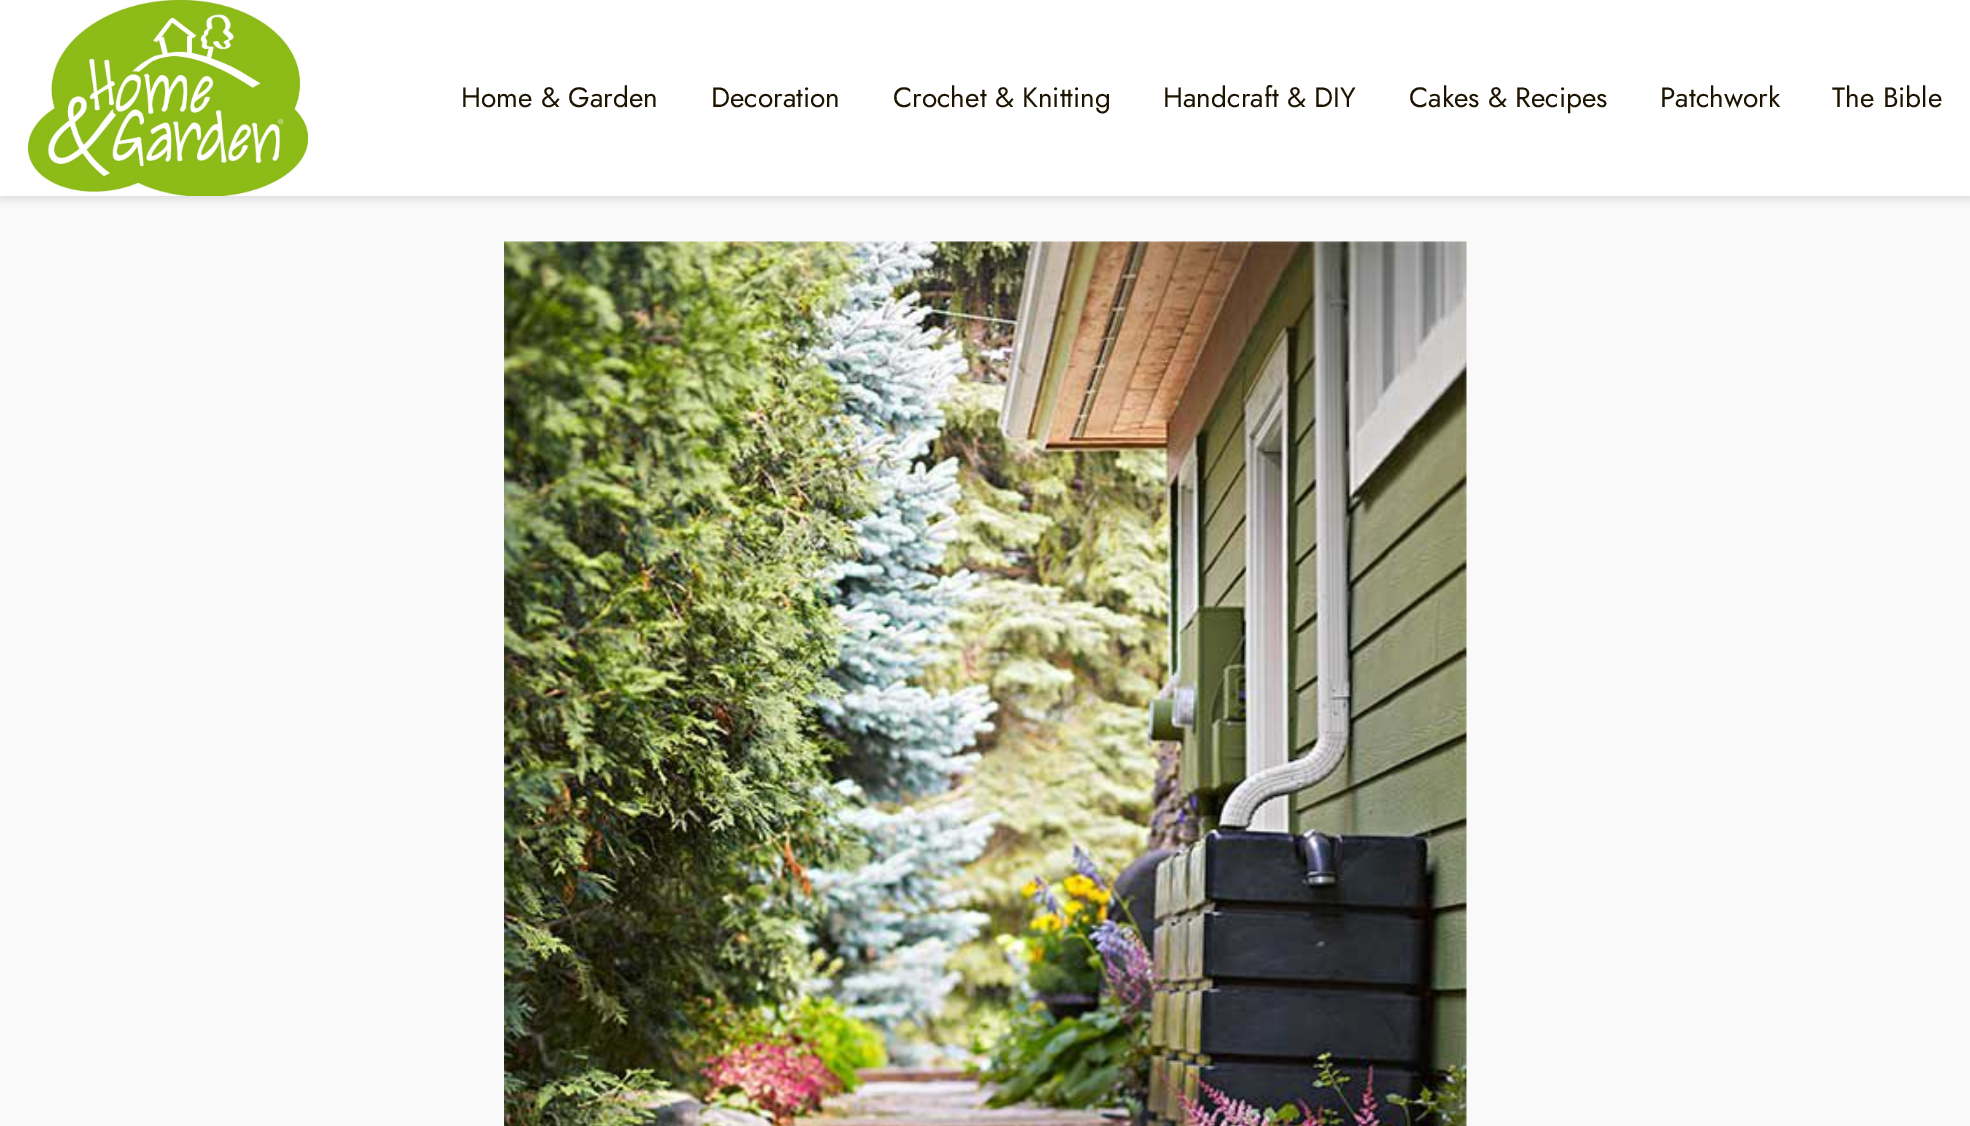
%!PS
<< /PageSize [1970 1126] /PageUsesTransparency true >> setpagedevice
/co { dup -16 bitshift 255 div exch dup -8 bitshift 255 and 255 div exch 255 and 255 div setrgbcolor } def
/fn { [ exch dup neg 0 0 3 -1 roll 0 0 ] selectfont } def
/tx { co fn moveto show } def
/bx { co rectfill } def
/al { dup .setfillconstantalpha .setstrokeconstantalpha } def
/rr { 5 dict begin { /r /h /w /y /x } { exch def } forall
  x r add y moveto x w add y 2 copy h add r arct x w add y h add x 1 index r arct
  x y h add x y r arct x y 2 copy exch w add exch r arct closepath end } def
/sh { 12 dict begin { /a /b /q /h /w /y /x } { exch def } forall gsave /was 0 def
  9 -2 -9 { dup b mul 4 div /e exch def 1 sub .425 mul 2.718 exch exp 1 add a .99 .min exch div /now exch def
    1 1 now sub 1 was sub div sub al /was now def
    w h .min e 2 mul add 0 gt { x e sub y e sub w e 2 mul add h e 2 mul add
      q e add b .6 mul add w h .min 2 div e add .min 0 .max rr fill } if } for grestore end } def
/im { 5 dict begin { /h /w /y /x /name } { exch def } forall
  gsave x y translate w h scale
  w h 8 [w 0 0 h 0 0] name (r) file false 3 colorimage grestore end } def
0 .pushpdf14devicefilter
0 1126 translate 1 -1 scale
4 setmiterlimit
0 0 1970 1126 16#F9F9F9 bx
16#000000 co
0 4 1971 196 0 3.5 .1 sh
0 0 1970 196 16#FFFFFF bx
(media/1.raw) 28 0 280 196 im
(media/2.raw) 504 241 963 885 im
(Home & Garden) 461 107 /Jost-Regular 28 16#1C1400 tx
(Decoration) 711 107 /Jost-Regular 28 16#1C1400 tx
(Crochet & Knitting) 893 107 /Jost-Regular 28 16#1C1400 tx
(Handcraft & DIY) 1163 107 /Jost-Regular 28 16#1C1400 tx
(Cakes & Recipes) 1409 107 /Jost-Regular 28 16#1C1400 tx
(Patchwork) 1660 107 /Jost-Regular 28 16#1C1400 tx
(The Bible) 1832 107 /Jost-Regular 28 16#1C1400 tx
.poppdf14devicefilter showpage
